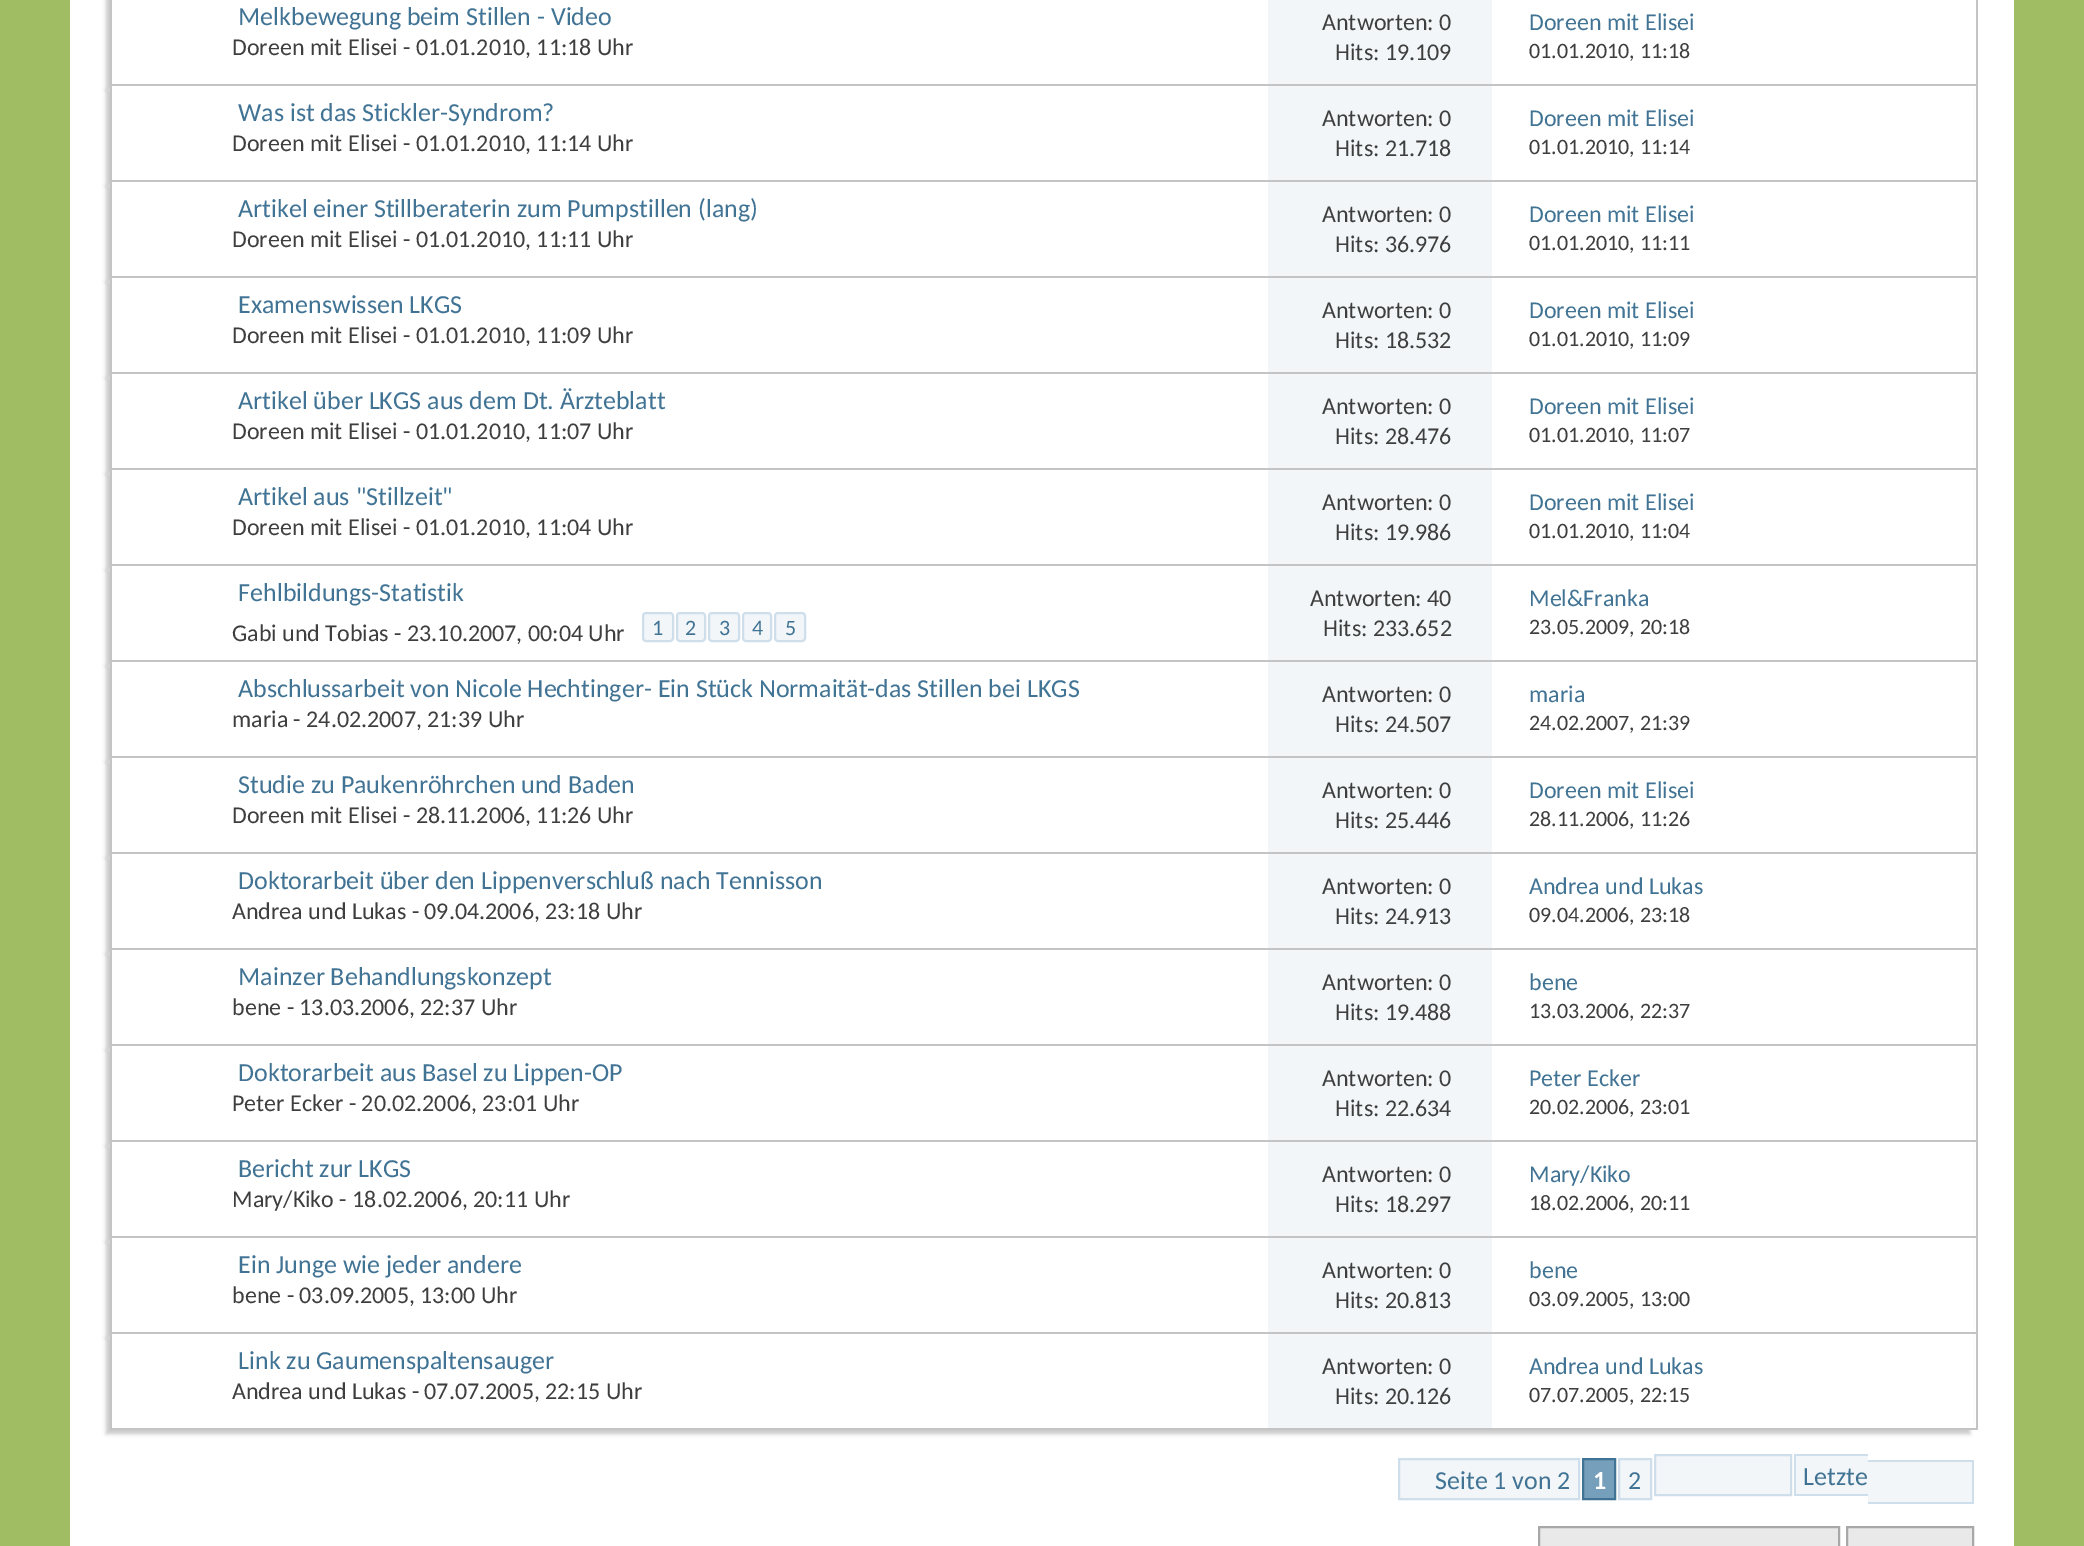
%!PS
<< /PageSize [2084 1546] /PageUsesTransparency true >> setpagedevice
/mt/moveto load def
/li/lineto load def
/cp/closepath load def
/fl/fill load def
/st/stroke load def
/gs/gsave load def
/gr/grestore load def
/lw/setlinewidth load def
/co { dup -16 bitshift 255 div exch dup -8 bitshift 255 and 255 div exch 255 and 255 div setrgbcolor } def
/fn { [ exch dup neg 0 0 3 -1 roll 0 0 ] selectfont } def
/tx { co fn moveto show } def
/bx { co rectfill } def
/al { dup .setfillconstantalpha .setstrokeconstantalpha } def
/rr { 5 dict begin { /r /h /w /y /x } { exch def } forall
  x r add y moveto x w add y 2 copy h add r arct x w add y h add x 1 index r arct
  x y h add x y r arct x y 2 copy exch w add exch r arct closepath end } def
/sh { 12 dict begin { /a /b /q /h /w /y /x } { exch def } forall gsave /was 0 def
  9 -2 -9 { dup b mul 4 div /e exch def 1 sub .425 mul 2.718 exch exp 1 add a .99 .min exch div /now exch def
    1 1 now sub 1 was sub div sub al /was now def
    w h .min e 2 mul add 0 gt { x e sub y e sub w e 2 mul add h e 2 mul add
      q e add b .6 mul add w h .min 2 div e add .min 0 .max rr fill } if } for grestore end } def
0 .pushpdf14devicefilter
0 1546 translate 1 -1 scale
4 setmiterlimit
0 0 2084 1546 16#A0BD64 bx
70 0 1944 1546 16#FFFFFF bx
gs
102 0 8 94 rectclip
16#C8C8C8 co
106 -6 1864 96 0 2 1 sh
gr
1976 0 2 86 16#C4C4C4 bx
110 84 1868 2 16#C4C4C4 bx
110 0 2 86 16#C4C4C4 bx
1268 0 224 84 16#F2F6F8 bx
16#C8C8C8 co
106 90 1864 96 0 2 1 sh
112 86 1861 94 16#FFFFFF bx
1976 86 2 96 16#C4C4C4 bx
110 180 1868 2 16#C4C4C4 bx
110 86 2 96 16#C4C4C4 bx
1268 86 224 94 16#F2F6F8 bx
16#C8C8C8 co
106 186 1864 96 0 2 1 sh
112 182 1861 94 16#FFFFFF bx
1976 182 2 96 16#C4C4C4 bx
110 276 1868 2 16#C4C4C4 bx
110 182 2 96 16#C4C4C4 bx
1268 182 224 94 16#F2F6F8 bx
16#C8C8C8 co
106 282 1864 96 0 2 1 sh
112 278 1861 94 16#FFFFFF bx
1976 278 2 96 16#C4C4C4 bx
110 372 1868 2 16#C4C4C4 bx
110 278 2 96 16#C4C4C4 bx
1268 278 224 94 16#F2F6F8 bx
16#C8C8C8 co
106 378 1864 96 0 2 1 sh
112 374 1861 94 16#FFFFFF bx
1976 374 2 96 16#C4C4C4 bx
110 468 1868 2 16#C4C4C4 bx
110 374 2 96 16#C4C4C4 bx
1268 374 224 94 16#F2F6F8 bx
16#C8C8C8 co
106 474 1864 96 0 2 1 sh
112 470 1861 94 16#FFFFFF bx
1976 470 2 96 16#C4C4C4 bx
110 564 1868 2 16#C4C4C4 bx
110 470 2 96 16#C4C4C4 bx
1268 470 224 94 16#F2F6F8 bx
16#C8C8C8 co
106 570 1864 96 0 2 1 sh
112 566 1861 94 16#FFFFFF bx
1976 566 2 96 16#C4C4C4 bx
110 660 1868 2 16#C4C4C4 bx
110 566 2 96 16#C4C4C4 bx
16#F2F6F8 co
643 613 30 28 3 rr gs fl gr
16#CEDFEB co
2 lw
st
16#F2F6F8 co
677 613 28 28 3 rr gs fl gr
16#CEDFEB co
st
16#F2F6F8 co
709 613 30 28 3 rr gs fl gr
16#CEDFEB co
st
16#F2F6F8 co
743 613 28 28 3 rr gs fl gr
16#CEDFEB co
st
16#F2F6F8 co
775 613 30 28 3 rr gs fl gr
16#CEDFEB co
st
1268 566 224 94 16#F2F6F8 bx
16#C8C8C8 co
106 666 1864 96 0 2 1 sh
112 662 1861 94 16#FFFFFF bx
1976 662 2 96 16#C4C4C4 bx
110 756 1868 2 16#C4C4C4 bx
110 662 2 96 16#C4C4C4 bx
1268 662 224 94 16#F2F6F8 bx
16#C8C8C8 co
106 762 1864 96 0 2 1 sh
112 758 1861 94 16#FFFFFF bx
1976 758 2 96 16#C4C4C4 bx
110 852 1868 2 16#C4C4C4 bx
110 758 2 96 16#C4C4C4 bx
1268 758 224 94 16#F2F6F8 bx
16#C8C8C8 co
106 858 1864 96 0 2 1 sh
112 854 1861 94 16#FFFFFF bx
1976 854 2 96 16#C4C4C4 bx
110 948 1868 2 16#C4C4C4 bx
110 854 2 96 16#C4C4C4 bx
1268 854 224 94 16#F2F6F8 bx
16#C8C8C8 co
106 954 1864 96 0 2 1 sh
112 950 1861 94 16#FFFFFF bx
1976 950 2 96 16#C4C4C4 bx
110 1044 1868 2 16#C4C4C4 bx
110 950 2 96 16#C4C4C4 bx
1268 950 224 94 16#F2F6F8 bx
16#C8C8C8 co
106 1050 1864 96 0 2 1 sh
112 1046 1861 94 16#FFFFFF bx
1976 1046 2 96 16#C4C4C4 bx
110 1140 1868 2 16#C4C4C4 bx
110 1046 2 96 16#C4C4C4 bx
1268 1046 224 94 16#F2F6F8 bx
16#C8C8C8 co
106 1146 1864 96 0 2 1 sh
112 1142 1861 94 16#FFFFFF bx
1976 1142 2 96 16#C4C4C4 bx
110 1236 1868 2 16#C4C4C4 bx
110 1142 2 96 16#C4C4C4 bx
1268 1142 224 94 16#F2F6F8 bx
16#C8C8C8 co
106 1242 1864 96 0 2 1 sh
112 1238 1861 94 16#FFFFFF bx
1976 1238 2 96 16#C4C4C4 bx
110 1332 1868 2 16#C4C4C4 bx
110 1238 2 96 16#C4C4C4 bx
1268 1238 224 94 16#F2F6F8 bx
16#C8C8C8 co
106 1338 1864 96 0 2 1 sh
112 1334 1861 94 16#FFFFFF bx
1976 1334 2 96 16#C4C4C4 bx
110 1428 1868 2 16#C4C4C4 bx
110 1334 2 96 16#C4C4C4 bx
1268 1334 224 94 16#F2F6F8 bx
1399 1459 mt 1579 1459 li 1579 1499 li 1399 1499 li cp gs fl gr
16#CEDFEB co
st
16#759FBB co
1583 1459 mt 1615 1459 li 1615 1499 li 1583 1499 li cp gs fl gr
16#417394 co
st
16#F2F6F8 co
1619 1459 mt 1651 1459 li 1651 1499 li 1619 1499 li cp gs fl gr
16#CEDFEB co
st
16#F2F6F8 co
1655 1455 mt 1791 1455 li 1791 1495 li 1655 1495 li cp gs fl gr
16#CEDFEB co
st
1796 1456 72 38 16#F2F6F8 bx
1794 1454 74 2 16#CEDFEB bx
1794 1494 74 2 16#CEDFEB bx
1794 1454 2 42 16#CEDFEB bx
1868 1462 104 40 16#F2F6F8 bx
1868 1460 106 2 16#CEDFEB bx
1972 1460 2 44 16#CEDFEB bx
1868 1502 106 2 16#CEDFEB bx
16#E9E9E9 co
1539 1527 mt 1839 1527 li 1839 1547 li 1539 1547 li cp gs fl gr
16#A8A8A8 co
st
16#E9E9E9 co
1847 1527 mt 1973 1527 li 1973 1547 li 1847 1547 li cp gs fl gr
16#A8A8A8 co
st
(Melkbewegung beim Stillen - Video) 238 25 /Carlito-Regular 26 16#417394 tx
(Doreen mit Elisei - 01.01.2010, 11:18 Uhr) 232 55 /Carlito-Regular 24 16#3E3E3E tx
(Antworten: 0) 1322 30 /Carlito-Regular 24 16#3E3E3E tx
(Hits: 19.109) 1335 60 /Carlito-Regular 24 16#3E3E3E tx
(Doreen mit Elisei) 1529 30 /Carlito-Regular 24 16#417394 tx
(01.01.2010, 11:18) 1529 58 /Carlito-Regular 22 16#3E3E3E tx
(Was ist das Stickler-Syndrom?) 238 121 /Carlito-Regular 26 16#417394 tx
(Doreen mit Elisei - 01.01.2010, 11:14 Uhr) 232 151 /Carlito-Regular 24 16#3E3E3E tx
(Antworten: 0) 1322 126 /Carlito-Regular 24 16#3E3E3E tx
(Hits: 21.718) 1335 156 /Carlito-Regular 24 16#3E3E3E tx
(Doreen mit Elisei) 1529 126 /Carlito-Regular 24 16#417394 tx
(01.01.2010, 11:14) 1529 154 /Carlito-Regular 22 16#3E3E3E tx
(Artikel einer Stillberaterin zum Pumpstillen \(lang\)) 238 217 /Carlito-Regular 26 16#417394 tx
(Doreen mit Elisei - 01.01.2010, 11:11 Uhr) 232 247 /Carlito-Regular 24 16#3E3E3E tx
(Antworten: 0) 1322 222 /Carlito-Regular 24 16#3E3E3E tx
(Hits: 36.976) 1335 252 /Carlito-Regular 24 16#3E3E3E tx
(Doreen mit Elisei) 1529 222 /Carlito-Regular 24 16#417394 tx
(01.01.2010, 11:11) 1529 250 /Carlito-Regular 22 16#3E3E3E tx
(Examenswissen LKGS) 238 313 /Carlito-Regular 26 16#417394 tx
(Doreen mit Elisei - 01.01.2010, 11:09 Uhr) 232 343 /Carlito-Regular 24 16#3E3E3E tx
(Antworten: 0) 1322 318 /Carlito-Regular 24 16#3E3E3E tx
(Hits: 18.532) 1335 348 /Carlito-Regular 24 16#3E3E3E tx
(Doreen mit Elisei) 1529 318 /Carlito-Regular 24 16#417394 tx
(01.01.2010, 11:09) 1529 346 /Carlito-Regular 22 16#3E3E3E tx
(Artikel über LKGS aus dem Dt. Ärzteblatt) 238 409 /Carlito-Regular 26 16#417394 tx
(Doreen mit Elisei - 01.01.2010, 11:07 Uhr) 232 439 /Carlito-Regular 24 16#3E3E3E tx
(Antworten: 0) 1322 414 /Carlito-Regular 24 16#3E3E3E tx
(Hits: 28.476) 1335 444 /Carlito-Regular 24 16#3E3E3E tx
(Doreen mit Elisei) 1529 414 /Carlito-Regular 24 16#417394 tx
(01.01.2010, 11:07) 1529 442 /Carlito-Regular 22 16#3E3E3E tx
(Artikel aus "Stillzeit") 238 505 /Carlito-Regular 26 16#417394 tx
(Doreen mit Elisei - 01.01.2010, 11:04 Uhr) 232 535 /Carlito-Regular 24 16#3E3E3E tx
(Antworten: 0) 1322 510 /Carlito-Regular 24 16#3E3E3E tx
(Hits: 19.986) 1335 540 /Carlito-Regular 24 16#3E3E3E tx
(Doreen mit Elisei) 1529 510 /Carlito-Regular 24 16#417394 tx
(01.01.2010, 11:04) 1529 538 /Carlito-Regular 22 16#3E3E3E tx
(Fehlbildungs-Statistik) 238 601 /Carlito-Regular 26 16#417394 tx
(Gabi und Tobias - 23.10.2007, 00:04 Uhr) 232 641 /Carlito-Regular 24 16#3E3E3E tx
(1) 652 635 /Carlito-Regular 22 16#417394 tx
(2) 685 635 /Carlito-Regular 22 16#417394 tx
(3) 719 635 /Carlito-Regular 22 16#417394 tx
(4) 752 635 /Carlito-Regular 22 16#417394 tx
(5) 785 635 /Carlito-Regular 22 16#417394 tx
(Antworten: 40) 1310 606 /Carlito-Regular 24 16#3E3E3E tx
(Hits: 233.652) 1323 636 /Carlito-Regular 24 16#3E3E3E tx
(Mel&Franka) 1529 606 /Carlito-Regular 24 16#417394 tx
(23.05.2009, 20:18) 1529 634 /Carlito-Regular 22 16#3E3E3E tx
(Abschlussarbeit von Nicole Hechtinger- Ein Stück Normaität-das Stillen bei LKGS) 238 697 /Carlito-Regular 26 16#417394 tx
(maria - 24.02.2007, 21:39 Uhr) 232 727 /Carlito-Regular 24 16#3E3E3E tx
(Antworten: 0) 1322 702 /Carlito-Regular 24 16#3E3E3E tx
(Hits: 24.507) 1335 732 /Carlito-Regular 24 16#3E3E3E tx
(maria) 1529 702 /Carlito-Regular 24 16#417394 tx
(24.02.2007, 21:39) 1529 730 /Carlito-Regular 22 16#3E3E3E tx
(Studie zu Paukenröhrchen und Baden) 238 793 /Carlito-Regular 26 16#417394 tx
(Doreen mit Elisei - 28.11.2006, 11:26 Uhr) 232 823 /Carlito-Regular 24 16#3E3E3E tx
(Antworten: 0) 1322 798 /Carlito-Regular 24 16#3E3E3E tx
(Hits: 25.446) 1335 828 /Carlito-Regular 24 16#3E3E3E tx
(Doreen mit Elisei) 1529 798 /Carlito-Regular 24 16#417394 tx
(28.11.2006, 11:26) 1529 826 /Carlito-Regular 22 16#3E3E3E tx
(Doktorarbeit über den Lippenverschluß nach Tennisson) 238 889 /Carlito-Regular 26 16#417394 tx
(Andrea und Lukas - 09.04.2006, 23:18 Uhr) 232 919 /Carlito-Regular 24 16#3E3E3E tx
(Antworten: 0) 1322 894 /Carlito-Regular 24 16#3E3E3E tx
(Hits: 24.913) 1335 924 /Carlito-Regular 24 16#3E3E3E tx
(Andrea und Lukas) 1529 894 /Carlito-Regular 24 16#417394 tx
(09.04.2006, 23:18) 1529 922 /Carlito-Regular 22 16#3E3E3E tx
(Mainzer Behandlungskonzept) 238 985 /Carlito-Regular 26 16#417394 tx
(bene - 13.03.2006, 22:37 Uhr) 232 1015 /Carlito-Regular 24 16#3E3E3E tx
(Antworten: 0) 1322 990 /Carlito-Regular 24 16#3E3E3E tx
(Hits: 19.488) 1335 1020 /Carlito-Regular 24 16#3E3E3E tx
(bene) 1529 990 /Carlito-Regular 24 16#417394 tx
(13.03.2006, 22:37) 1529 1018 /Carlito-Regular 22 16#3E3E3E tx
(Doktorarbeit aus Basel zu Lippen-OP) 238 1081 /Carlito-Regular 26 16#417394 tx
(Peter Ecker - 20.02.2006, 23:01 Uhr) 232 1111 /Carlito-Regular 24 16#3E3E3E tx
(Antworten: 0) 1322 1086 /Carlito-Regular 24 16#3E3E3E tx
(Hits: 22.634) 1335 1116 /Carlito-Regular 24 16#3E3E3E tx
(Peter Ecker) 1529 1086 /Carlito-Regular 24 16#417394 tx
(20.02.2006, 23:01) 1529 1114 /Carlito-Regular 22 16#3E3E3E tx
(Bericht zur LKGS) 238 1177 /Carlito-Regular 26 16#417394 tx
(Mary/Kiko - 18.02.2006, 20:11 Uhr) 232 1207 /Carlito-Regular 24 16#3E3E3E tx
(Antworten: 0) 1322 1182 /Carlito-Regular 24 16#3E3E3E tx
(Hits: 18.297) 1335 1212 /Carlito-Regular 24 16#3E3E3E tx
(Mary/Kiko) 1529 1182 /Carlito-Regular 24 16#417394 tx
(18.02.2006, 20:11) 1529 1210 /Carlito-Regular 22 16#3E3E3E tx
(Ein Junge wie jeder andere) 238 1273 /Carlito-Regular 26 16#417394 tx
(bene - 03.09.2005, 13:00 Uhr) 232 1303 /Carlito-Regular 24 16#3E3E3E tx
(Antworten: 0) 1322 1278 /Carlito-Regular 24 16#3E3E3E tx
(Hits: 20.813) 1335 1308 /Carlito-Regular 24 16#3E3E3E tx
(bene) 1529 1278 /Carlito-Regular 24 16#417394 tx
(03.09.2005, 13:00) 1529 1306 /Carlito-Regular 22 16#3E3E3E tx
(Link zu Gaumenspaltensauger) 238 1369 /Carlito-Regular 26 16#417394 tx
(Andrea und Lukas - 07.07.2005, 22:15 Uhr) 232 1399 /Carlito-Regular 24 16#3E3E3E tx
(Antworten: 0) 1322 1374 /Carlito-Regular 24 16#3E3E3E tx
(Hits: 20.126) 1335 1404 /Carlito-Regular 24 16#3E3E3E tx
(Andrea und Lukas) 1529 1374 /Carlito-Regular 24 16#417394 tx
(07.07.2005, 22:15) 1529 1402 /Carlito-Regular 22 16#3E3E3E tx
(Seite 1 von 2) 1435 1489 /Carlito-Regular 26 16#417394 tx
(1) 1593 1489 /Carlito-Bold 26 16#FFFFFF tx
(2) 1628 1489 /Carlito-Regular 26 16#417394 tx
(Letzte) 1803 1485 /Carlito-Regular 26 16#417394 tx
.poppdf14devicefilter showpage
